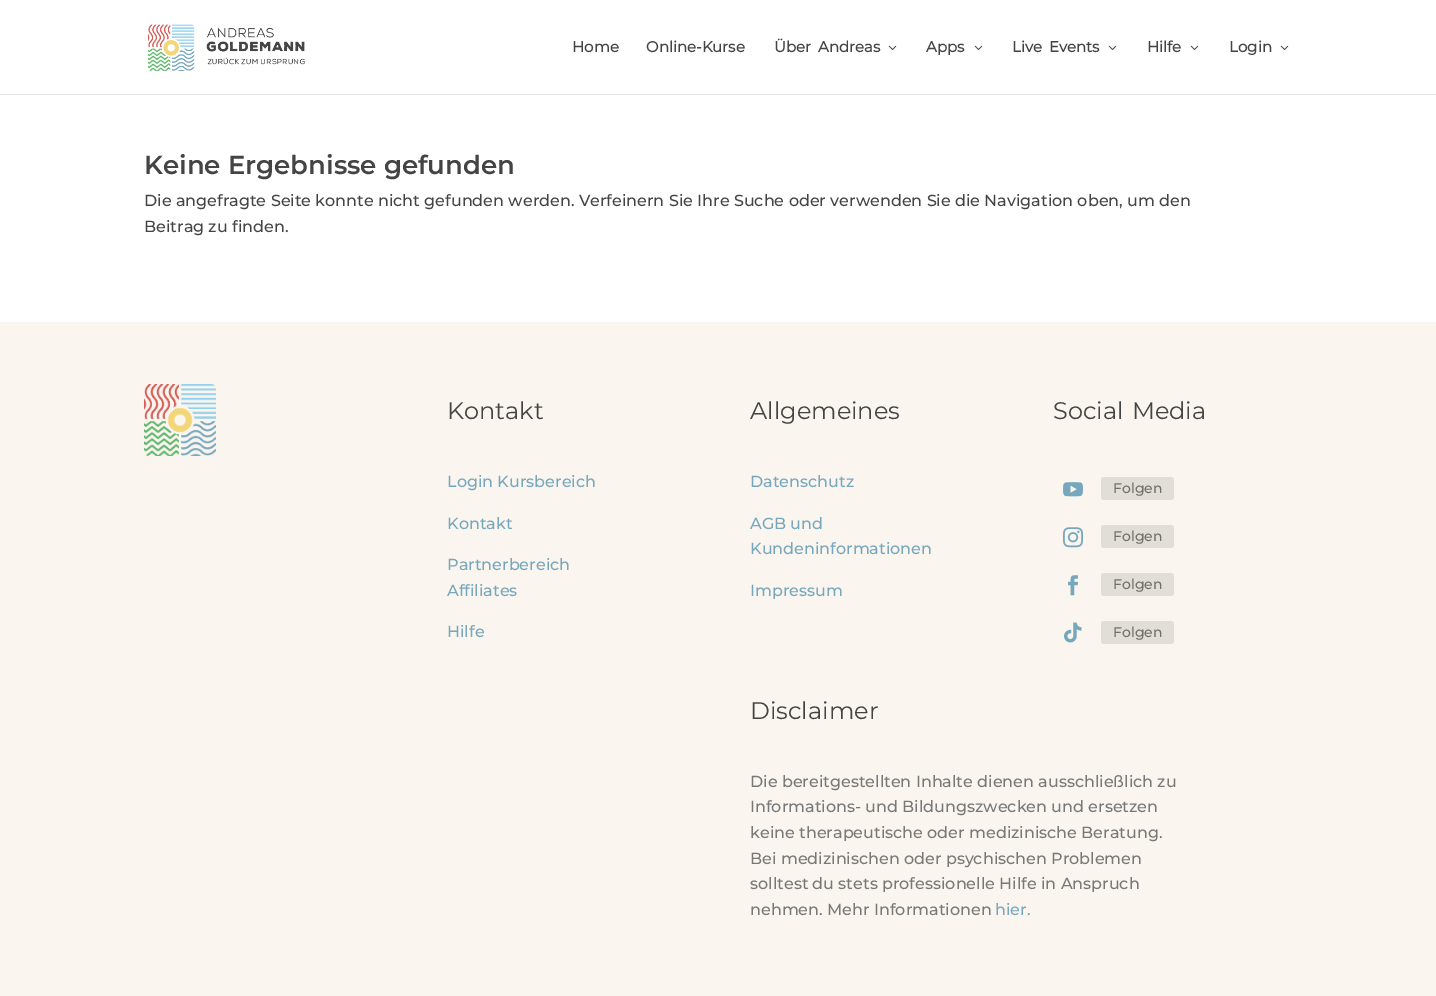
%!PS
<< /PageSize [1436 996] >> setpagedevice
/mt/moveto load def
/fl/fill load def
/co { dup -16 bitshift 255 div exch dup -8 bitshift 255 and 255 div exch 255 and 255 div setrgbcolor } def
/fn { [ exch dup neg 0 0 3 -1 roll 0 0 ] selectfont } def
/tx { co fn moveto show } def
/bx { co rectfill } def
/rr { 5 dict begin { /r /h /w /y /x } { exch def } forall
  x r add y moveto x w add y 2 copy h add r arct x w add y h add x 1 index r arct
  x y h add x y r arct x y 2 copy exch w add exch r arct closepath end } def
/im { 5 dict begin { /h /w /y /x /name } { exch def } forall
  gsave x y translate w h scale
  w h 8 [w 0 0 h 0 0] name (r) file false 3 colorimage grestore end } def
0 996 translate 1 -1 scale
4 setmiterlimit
0 0 1436 996 16#FFFFFF bx
0 94 1436 1 16#E6E6E6 bx
(media/1.raw) 148 24 157 47 im
(media/2.raw) 888 45 9 5 im
(media/2.raw) 974 45 9 5 im
(media/2.raw) 1108 45 9 5 im
(media/2.raw) 1190 45 9 5 im
(media/2.raw) 1280 45 9 5 im
0 322 1436 674 16#FAF5EF bx
(media/3.raw) 144 384 72 72 im
(media/4.raw) 1063 482 20 15 im
16#E1DDD7 co
1101 477 73 23 3 rr fl
(media/5.raw) 1063 527 20 21 im
1101 525 73 23 3 rr fl
(media/6.raw) 1068 575 10 21 im
1101 573 73 23 3 rr fl
(media/7.raw) 1064 622 18 21 im
1101 621 73 23 3 rr fl
(Home) 572 52 /Montserrat-Bold 15 16#444444 tx
(Online-Kurse) 646 52 /Montserrat-Bold 15 16#444444 tx
774 52 mt 3 0 32 (Über Andreas) widthshow
(Apps) 926 52 /Montserrat-Bold 15 16#444444 tx
1012 52 mt 3 0 32 (Live Events) widthshow
(Hilfe) 1147 52 /Montserrat-Bold 15 16#444444 tx
(Login) 1229 52 /Montserrat-Bold 15 16#444444 tx
(Keine Ergebnisse gefunden) 144 174 /Montserrat-SemiBold 26 16#444444 tx
(Die angefragte Seite konnte nicht gefunden werden. Verfeinern Sie Ihre Suche oder verwenden Sie die Navigation oben, um den) 144 206 /Montserrat-Medium 16 16#444444 tx
(Beitrag zu finden.) 144 232 /Montserrat-Medium 16 16#444444 tx
(Kontakt) 447 419 /Montserrat-Regular 24 16#444444 tx
(Login Kursbereich) 447 487 /Montserrat-Medium 16 16#77A7BC tx
(Kontakt) 447 529 /Montserrat-Medium 16 16#77A7BC tx
(Partnerbereich) 447 570 /Montserrat-Medium 16 16#77A7BC tx
(Affiliates) 447 596 /Montserrat-Medium 16 16#77A7BC tx
(Hilfe) 447 637 /Montserrat-Medium 16 16#77A7BC tx
(Allgemeines) 750 419 /Montserrat-Regular 24 16#444444 tx
(Datenschutz) 750 487 /Montserrat-Medium 16 16#77A7BC tx
(AGB und) 750 529 /Montserrat-Medium 16 16#77A7BC tx
(Kundeninformationen) 750 554 /Montserrat-Medium 16 16#77A7BC tx
(Impressum) 750 596 /Montserrat-Medium 16 16#77A7BC tx
/Montserrat-Regular 24 fn
16#444444 co
1053 419 mt 2 0 32 (Social Media) widthshow
(Folgen) 1113 493 /Montserrat-Medium 14 16#716F6C tx
(Folgen) 1113 541 /Montserrat-Medium 14 16#716F6C tx
(Folgen) 1113 589 /Montserrat-Medium 14 16#716F6C tx
(Folgen) 1113 637 /Montserrat-Medium 14 16#716F6C tx
(Disclaimer) 750 719 /Montserrat-Regular 24 16#444444 tx
(Die bereitgestellten Inhalte dienen ausschließlich zu) 750 787 /Montserrat-Medium 16 16#777878 tx
(Informations- und Bildungszwecken und ersetzen) 750 812 /Montserrat-Medium 16 16#777878 tx
(keine therapeutische oder medizinische Beratung.) 750 838 /Montserrat-Medium 16 16#777878 tx
(Bei medizinischen oder psychischen Problemen) 750 864 /Montserrat-Medium 16 16#777878 tx
(solltest du stets professionelle Hilfe in Anspruch) 750 889 /Montserrat-Medium 16 16#777878 tx
(nehmen. Mehr Informationen) 750 915 /Montserrat-Medium 16 16#777878 tx
(hier.) 995 915 /Montserrat-Medium 16 16#77A7BC tx
showpage
